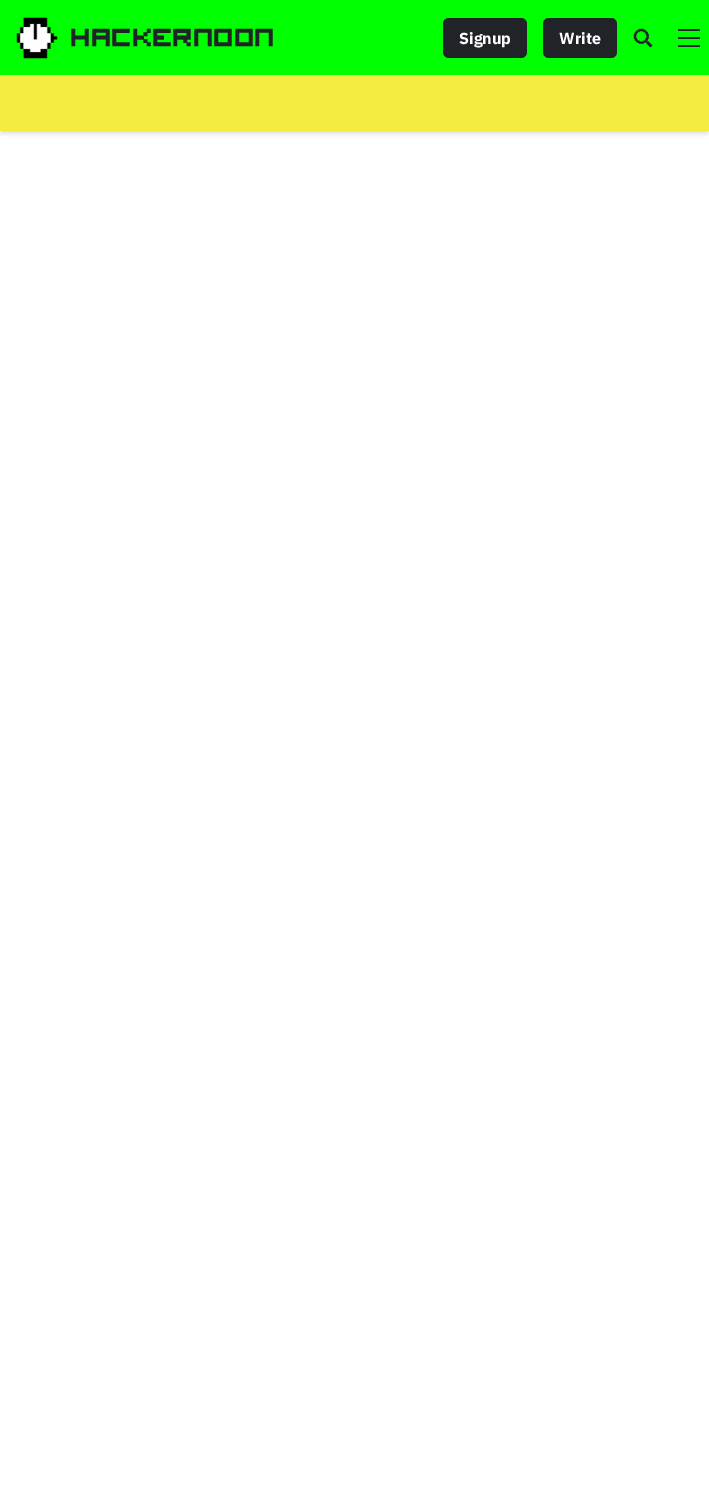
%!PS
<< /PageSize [709 1510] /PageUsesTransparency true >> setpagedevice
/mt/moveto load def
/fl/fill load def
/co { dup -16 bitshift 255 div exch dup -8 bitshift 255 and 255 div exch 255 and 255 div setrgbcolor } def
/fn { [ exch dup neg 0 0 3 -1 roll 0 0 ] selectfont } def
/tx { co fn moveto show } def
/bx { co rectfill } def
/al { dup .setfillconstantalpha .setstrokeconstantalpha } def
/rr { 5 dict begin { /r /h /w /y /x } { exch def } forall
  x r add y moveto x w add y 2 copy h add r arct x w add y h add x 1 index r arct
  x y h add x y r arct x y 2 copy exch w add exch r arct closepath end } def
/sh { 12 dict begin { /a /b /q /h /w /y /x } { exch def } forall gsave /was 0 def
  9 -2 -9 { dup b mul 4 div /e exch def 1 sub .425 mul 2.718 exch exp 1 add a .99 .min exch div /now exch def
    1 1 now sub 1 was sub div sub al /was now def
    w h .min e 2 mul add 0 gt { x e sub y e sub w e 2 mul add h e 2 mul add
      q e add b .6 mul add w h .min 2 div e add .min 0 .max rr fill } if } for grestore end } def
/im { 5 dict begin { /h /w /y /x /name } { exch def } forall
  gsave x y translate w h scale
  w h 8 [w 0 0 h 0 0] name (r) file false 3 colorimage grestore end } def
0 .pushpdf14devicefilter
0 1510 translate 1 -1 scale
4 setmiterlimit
0 0 709 1510 16#FFFFFF bx
0 0 709 75 16#00FF00 bx
(media/1.raw) 16 17 42 42 im
16#202327 co
443 18 84 40 6 rr fl
543 18 74 40 6 rr fl
(media/2.raw) 633 28 20 20 im
(media/3.raw) 678 29 22 18 im
16#000000 co
2 79 705 52 0 2 .1 sh
1 80 707 54 0 3 .1 sh
0 75 709 56 16#F5EC42 bx
/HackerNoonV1-Bold 24 fn
16#202327 co
70 44 mt 1.25 0 (Hackernoon) ashow
(Signup) 459 44 /IBMPlexSans-Bold 16 16#FFFFFF tx
(Write) 559 44 /IBMPlexSans-Bold 16 16#FFFFFF tx
.poppdf14devicefilter showpage
